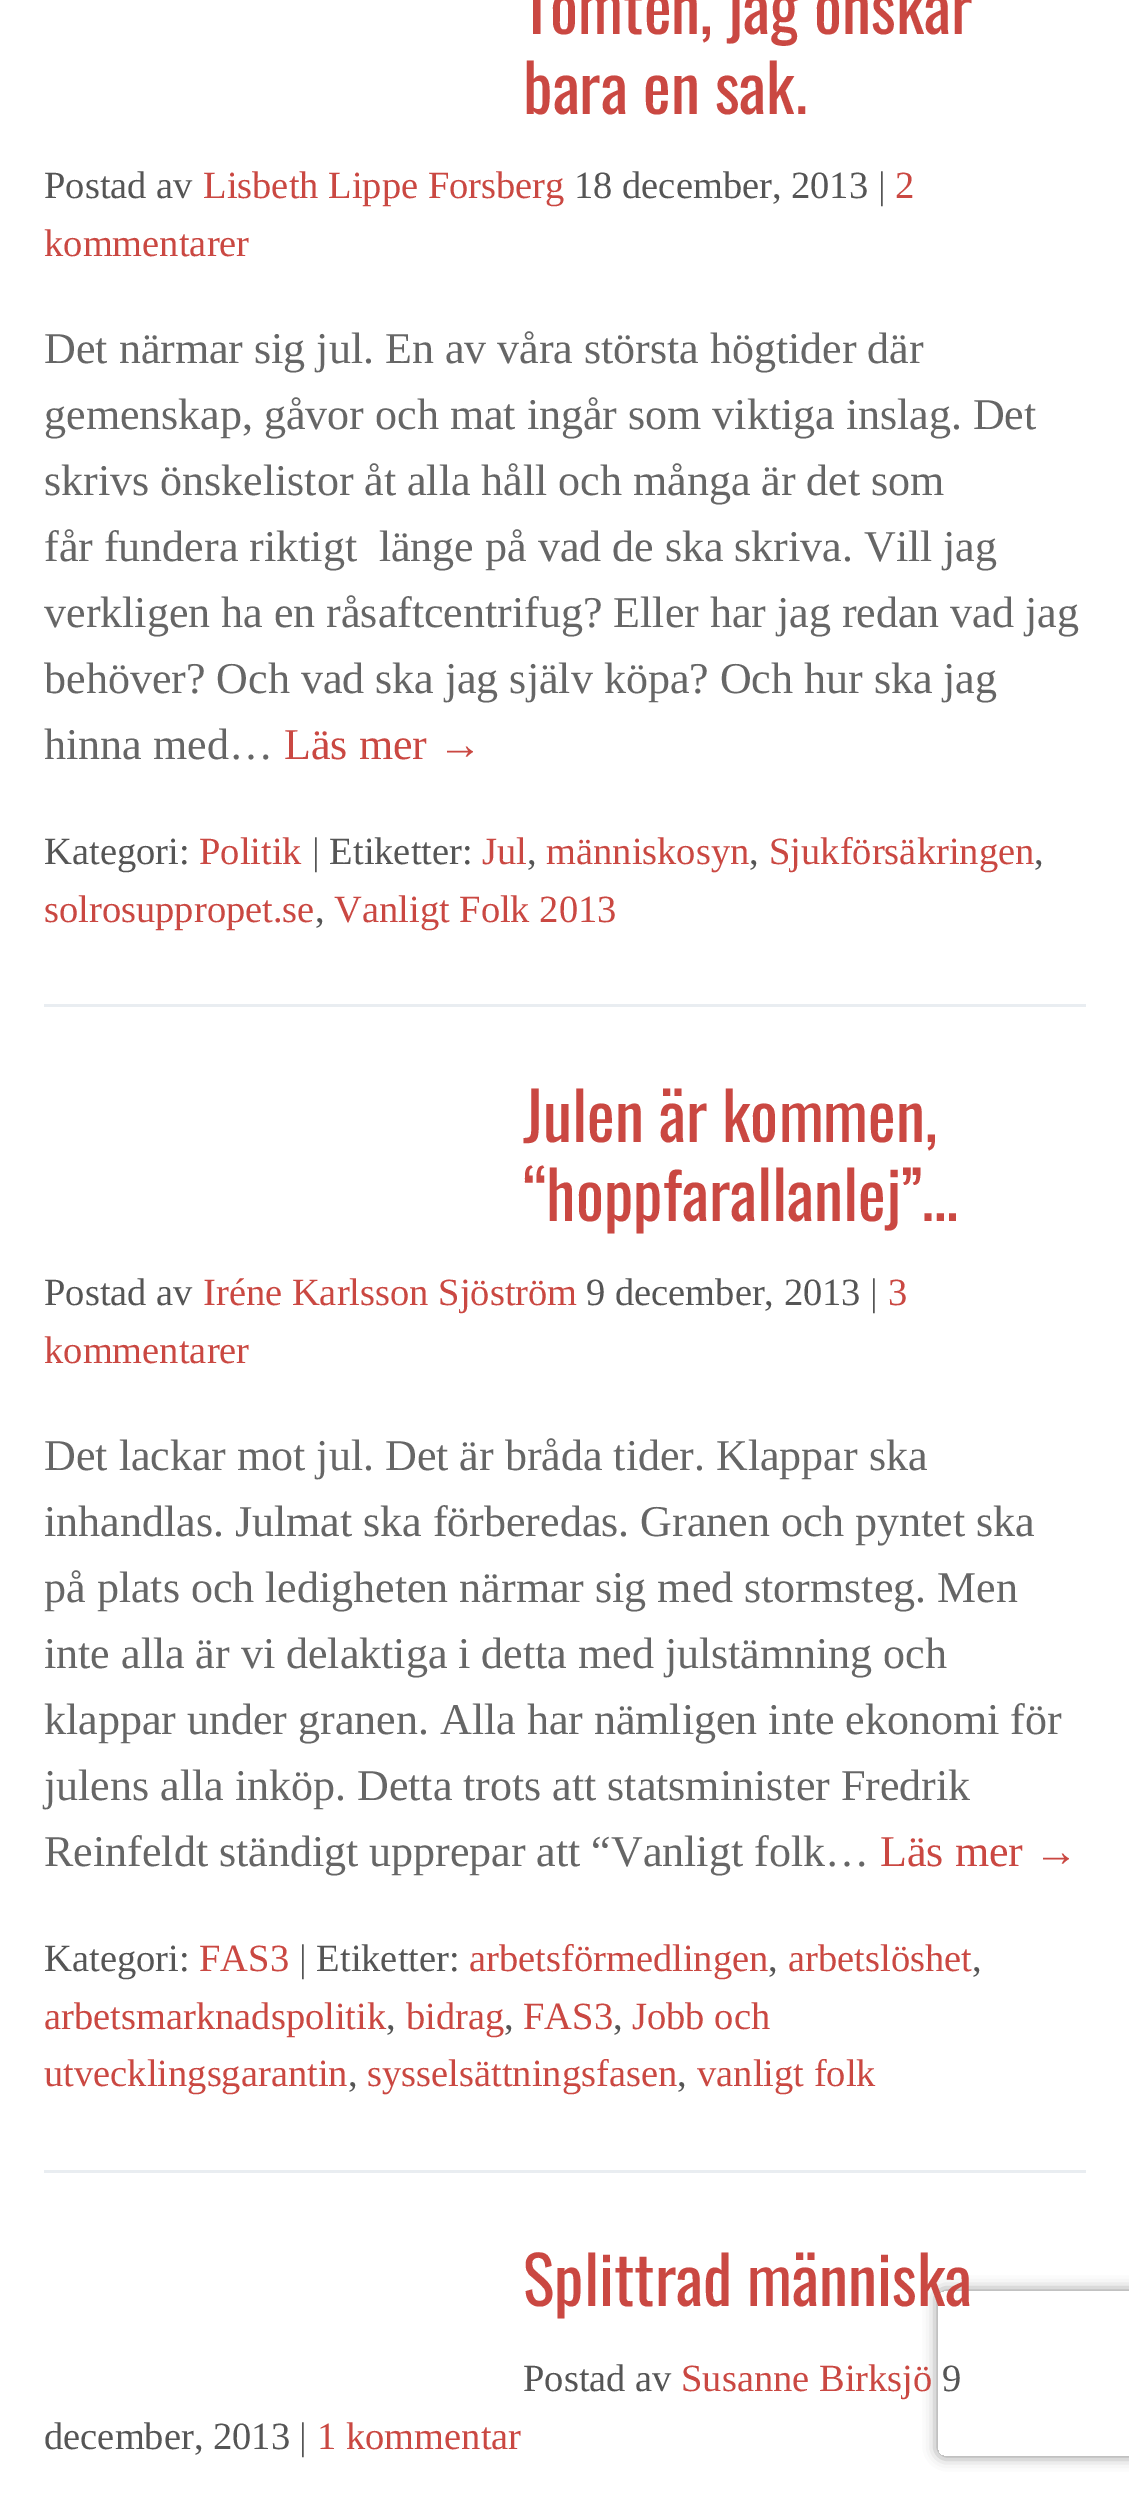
%!PS
<< /PageSize [1129 2494] /PageUsesTransparency true >> setpagedevice
/mt/moveto load def
/li/lineto load def
/ct/curveto load def
/cp/closepath load def
/gs/gsave load def
/gr/grestore load def
/co { dup -16 bitshift 255 div exch dup -8 bitshift 255 and 255 div exch 255 and 255 div setrgbcolor } def
/fn { [ exch dup neg 0 0 3 -1 roll 0 0 ] selectfont } def
/tx { co fn moveto show } def
/bx { co rectfill } def
/al { dup .setfillconstantalpha .setstrokeconstantalpha } def
/rr { 5 dict begin { /r /h /w /y /x } { exch def } forall
  x r add y moveto x w add y 2 copy h add r arct x w add y h add x 1 index r arct
  x y h add x y r arct x y 2 copy exch w add exch r arct closepath end } def
/sh { 12 dict begin { /a /b /q /h /w /y /x } { exch def } forall gsave /was 0 def
  9 -2 -9 { dup b mul 4 div /e exch def 1 sub .425 mul 2.718 exch exp 1 add a .99 .min exch div /now exch def
    1 1 now sub 1 was sub div sub al /was now def
    w h .min e 2 mul add 0 gt { x e sub y e sub w e 2 mul add h e 2 mul add
      q e add b .6 mul add w h .min 2 div e add .min 0 .max rr fill } if } for grestore end } def
0 .pushpdf14devicefilter
0 2494 translate 1 -1 scale
4 setmiterlimit
0 0 1129 2494 16#FFFFFF bx
44 1004 1042 3 16#E9EDF1 bx
44 2170 1042 3 16#E9EDF1 bx
gs
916 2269 mt 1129 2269 li 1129 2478 li 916 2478 li cp 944 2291 mt 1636 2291 li 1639.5 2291 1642 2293.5 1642 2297 ct 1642 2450 li 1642 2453.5 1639.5 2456 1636 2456 ct 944 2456 li 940.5 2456 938 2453.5 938 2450 ct 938 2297 li 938 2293.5 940.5 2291 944 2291 ct cp eoclip newpath
16#808080 co
938 2291 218 165 6 7 1 sh
gr
(Tomten, jag önskar) 523 34 /Oswald-Regular 66 16#CA4842 tx
(bara en sak.) 523 114 /Oswald-Regular 66 16#CA4842 tx
(Postad av) 44 198 /LiberationSerif-Regular 38.5 16#555555 tx
(Lisbeth Lippe Forsberg) 203 198 /LiberationSerif-Regular 38.5 16#CA4842 tx
(18 december, 2013 |) 574 198 /LiberationSerif-Regular 38.5 16#555555 tx
(2) 895 198 /LiberationSerif-Regular 38.5 16#CA4842 tx
(kommentarer) 44 256 /LiberationSerif-Regular 38.5 16#CA4842 tx
(Det närmar sig jul. En av våra största högtider där) 44 363 /LiberationSerif-Regular 44 16#666666 tx
(gemenskap, gåvor och mat ingår som viktiga inslag. Det) 44 429 /LiberationSerif-Regular 44 16#666666 tx
(skrivs önskelistor åt alla håll och många är det som) 44 495 /LiberationSerif-Regular 44 16#666666 tx
(får fundera riktigt  länge på vad de ska skriva. Vill jag) 44 561 /LiberationSerif-Regular 44 16#666666 tx
(verkligen ha en råsaftcentrifug? Eller har jag redan vad jag) 44 627 /LiberationSerif-Regular 44 16#666666 tx
(behöver? Och vad ska jag själv köpa? Och hur ska jag) 44 693 /LiberationSerif-Regular 44 16#666666 tx
(hinna med…) 44 759 /LiberationSerif-Regular 44 16#666666 tx
(Läs mer →) 284 759 /LiberationSerif-Regular 44 16#CA4842 tx
(Kategori:) 44 864 /LiberationSerif-Regular 38.5 16#555555 tx
(Politik) 199 864 /LiberationSerif-Regular 38.5 16#CA4842 tx
(| Etiketter:) 312 864 /LiberationSerif-Regular 38.5 16#555555 tx
(Jul) 482 864 /LiberationSerif-Regular 38.5 16#CA4842 tx
(,) 527 864 /LiberationSerif-Regular 38.5 16#555555 tx
(människosyn) 546 864 /LiberationSerif-Regular 38.5 16#CA4842 tx
(,) 749 864 /LiberationSerif-Regular 38.5 16#555555 tx
(Sjukförsäkringen) 769 864 /LiberationSerif-Regular 38.5 16#CA4842 tx
(,) 1034 864 /LiberationSerif-Regular 38.5 16#555555 tx
(solrosuppropet.se) 44 922 /LiberationSerif-Regular 38.5 16#CA4842 tx
(,) 315 922 /LiberationSerif-Regular 38.5 16#555555 tx
(Vanligt Folk 2013) 334 922 /LiberationSerif-Regular 38.5 16#CA4842 tx
(Julen är kommen,) 523 1142 /Oswald-Regular 66 16#CA4842 tx
(“hoppfarallanlej”…) 523 1221 /Oswald-Regular 66 16#CA4842 tx
(Postad av) 44 1305 /LiberationSerif-Regular 38.5 16#555555 tx
(Iréne Karlsson Sjöström) 203 1305 /LiberationSerif-Regular 38.5 16#CA4842 tx
(9 december, 2013 |) 586 1305 /LiberationSerif-Regular 38.5 16#555555 tx
(3) 888 1305 /LiberationSerif-Regular 38.5 16#CA4842 tx
(kommentarer) 44 1363 /LiberationSerif-Regular 38.5 16#CA4842 tx
(Det lackar mot jul. Det är bråda tider. Klappar ska) 44 1470 /LiberationSerif-Regular 44 16#666666 tx
(inhandlas. Julmat ska förberedas. Granen och pyntet ska) 44 1536 /LiberationSerif-Regular 44 16#666666 tx
(på plats och ledigheten närmar sig med stormsteg. Men) 44 1602 /LiberationSerif-Regular 44 16#666666 tx
(inte alla är vi delaktiga i detta med julstämning och) 44 1668 /LiberationSerif-Regular 44 16#666666 tx
(klappar under granen. Alla har nämligen inte ekonomi för) 44 1734 /LiberationSerif-Regular 44 16#666666 tx
(julens alla inköp. Detta trots att statsminister Fredrik) 44 1800 /LiberationSerif-Regular 44 16#666666 tx
(Reinfeldt ständigt upprepar att “Vanligt folk…) 44 1866 /LiberationSerif-Regular 44 16#666666 tx
(Läs mer →) 880 1866 /LiberationSerif-Regular 44 16#CA4842 tx
(Kategori:) 44 1971 /LiberationSerif-Regular 38.5 16#555555 tx
(FAS3) 199 1971 /LiberationSerif-Regular 38.5 16#CA4842 tx
(| Etiketter:) 299 1971 /LiberationSerif-Regular 38.5 16#555555 tx
(arbetsförmedlingen) 469 1971 /LiberationSerif-Regular 38.5 16#CA4842 tx
(,) 768 1971 /LiberationSerif-Regular 38.5 16#555555 tx
(arbetslöshet) 788 1971 /LiberationSerif-Regular 38.5 16#CA4842 tx
(,) 972 1971 /LiberationSerif-Regular 38.5 16#555555 tx
(arbetsmarknadspolitik) 44 2029 /LiberationSerif-Regular 38.5 16#CA4842 tx
(,) 386 2029 /LiberationSerif-Regular 38.5 16#555555 tx
(bidrag) 406 2029 /LiberationSerif-Regular 38.5 16#CA4842 tx
(,) 504 2029 /LiberationSerif-Regular 38.5 16#555555 tx
(FAS3) 523 2029 /LiberationSerif-Regular 38.5 16#CA4842 tx
(,) 613 2029 /LiberationSerif-Regular 38.5 16#555555 tx
(Jobb och) 632 2029 /LiberationSerif-Regular 38.5 16#CA4842 tx
(utvecklingsgarantin) 44 2086 /LiberationSerif-Regular 38.5 16#CA4842 tx
(,) 348 2086 /LiberationSerif-Regular 38.5 16#555555 tx
(sysselsättningsfasen) 367 2086 /LiberationSerif-Regular 38.5 16#CA4842 tx
(,) 677 2086 /LiberationSerif-Regular 38.5 16#555555 tx
(vanligt folk) 697 2086 /LiberationSerif-Regular 38.5 16#CA4842 tx
(Splittrad människa) 523 2306 /Oswald-Regular 66 16#CA4842 tx
(Postad av) 523 2391 /LiberationSerif-Regular 38.5 16#555555 tx
(Susanne Birksjö) 681 2391 /LiberationSerif-Regular 38.5 16#CA4842 tx
(9) 942 2391 /LiberationSerif-Regular 38.5 16#555555 tx
(december, 2013 |) 44 2449 /LiberationSerif-Regular 38.5 16#555555 tx
(1 kommentar) 317 2449 /LiberationSerif-Regular 38.5 16#CA4842 tx
.poppdf14devicefilter showpage
